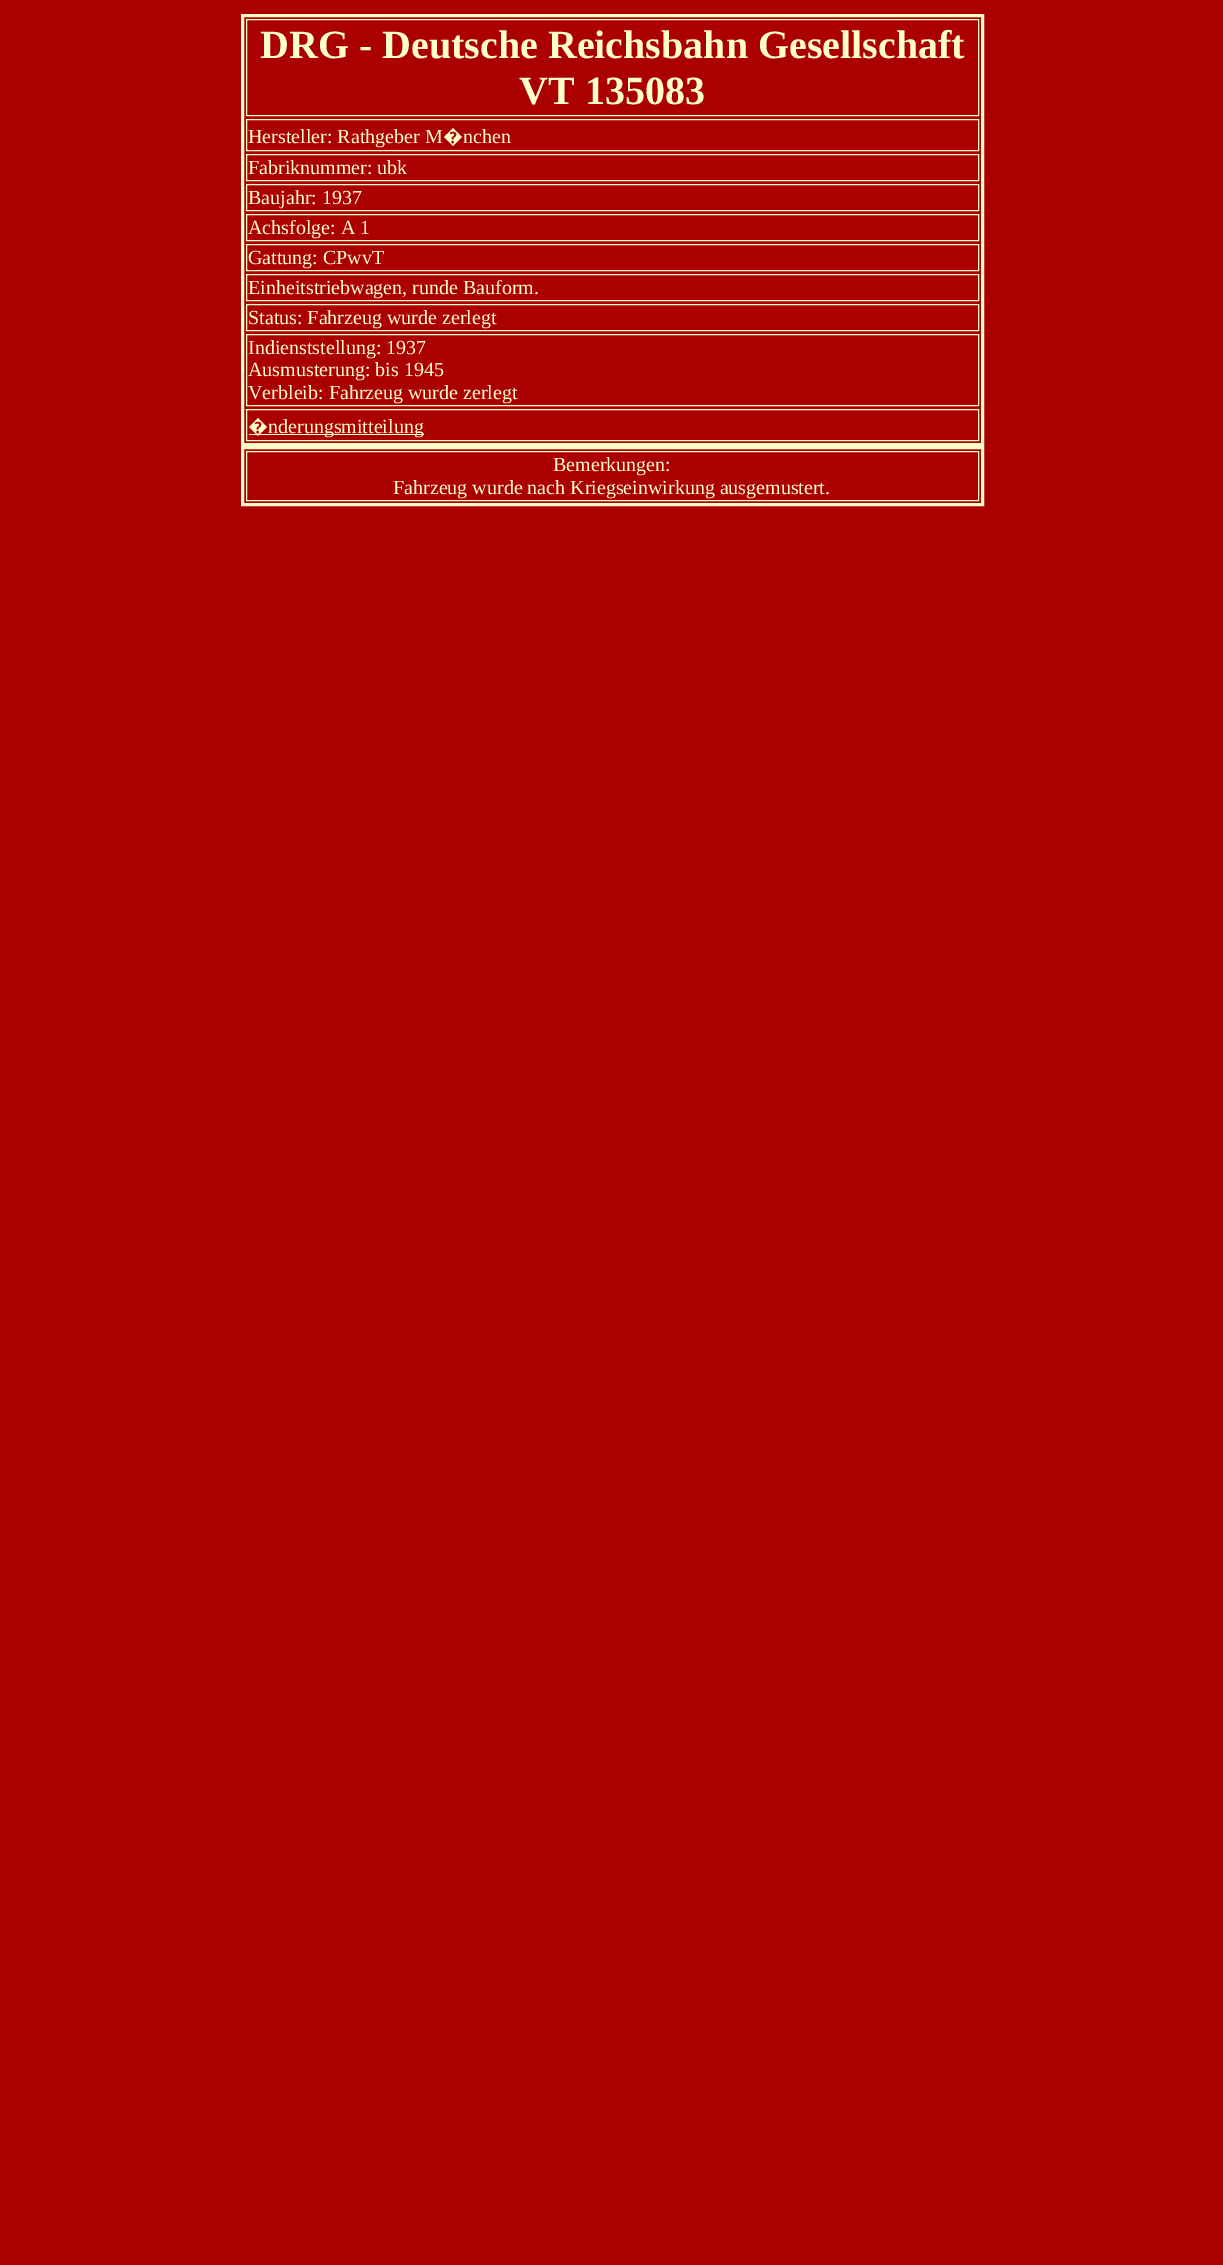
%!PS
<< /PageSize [1223 2265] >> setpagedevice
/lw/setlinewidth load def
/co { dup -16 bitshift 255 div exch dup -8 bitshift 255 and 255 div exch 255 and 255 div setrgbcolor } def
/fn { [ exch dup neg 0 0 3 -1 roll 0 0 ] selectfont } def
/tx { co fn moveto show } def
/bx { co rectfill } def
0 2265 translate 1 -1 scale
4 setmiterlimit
0 0 1223 2265 16#AA0000 bx
16#FFFFCC co
3 lw
242.5 15.5 740 429 rectstroke
1 lw
246.5 19.5 732 96 rectstroke
246.5 119.5 732 31 rectstroke
246.5 154.5 732 26 rectstroke
246.5 184.5 732 26 rectstroke
246.5 214.5 732 26 rectstroke
246.5 244.5 732 26 rectstroke
246.5 274.5 732 26 rectstroke
246.5 304.5 732 26 rectstroke
246.5 334.5 732 71 rectstroke
246.5 409.5 732 31 rectstroke
249 434 175 1 16#FFFFCC bx
3 lw
242.5 447.5 740 57 rectstroke
1 lw
246.5 451.5 732 49 rectstroke
(DRG - Deutsche Reichsbahn Gesellschaft) 260 58 /LiberationSerif-Bold 40 16#FFFFCC tx
(VT 135083) 519 104 /LiberationSerif-Bold 40 16#FFFFCC tx
(Hersteller: Rathgeber M) 248 143 /LiberationSerif-Regular 20 16#FFFFCC tx
(�) 443 143 /NotoSans-Regular 20 16#FFFFCC tx
(nchen) 463 143 /LiberationSerif-Regular 20 16#FFFFCC tx
(Fabriknummer: ubk) 248 174 /LiberationSerif-Regular 20 16#FFFFCC tx
(Baujahr: 1937) 248 204 /LiberationSerif-Regular 20 16#FFFFCC tx
(Achsfolge: A 1) 248 234 /LiberationSerif-Regular 20 16#FFFFCC tx
(Gattung: CPwvT) 248 264 /LiberationSerif-Regular 20 16#FFFFCC tx
(Einheitstriebwagen, runde Bauform.) 248 294 /LiberationSerif-Regular 20 16#FFFFCC tx
(Status: Fahrzeug wurde zerlegt) 248 324 /LiberationSerif-Regular 20 16#FFFFCC tx
(Indienststellung: 1937) 248 354 /LiberationSerif-Regular 20 16#FFFFCC tx
(Ausmusterung: bis 1945) 248 376 /LiberationSerif-Regular 20 16#FFFFCC tx
(Verbleib: Fahrzeug wurde zerlegt) 248 399 /LiberationSerif-Regular 20 16#FFFFCC tx
(�) 248 433 /NotoSans-Regular 20 16#FFFFCC tx
(nderungsmitteilung) 268 433 /LiberationSerif-Regular 20 16#FFFFCC tx
(Bemerkungen:) 553 471 /LiberationSerif-Regular 20 16#FFFFCC tx
(Fahrzeug wurde nach Kriegseinwirkung ausgemustert.) 393 494 /LiberationSerif-Regular 20 16#FFFFCC tx
showpage
